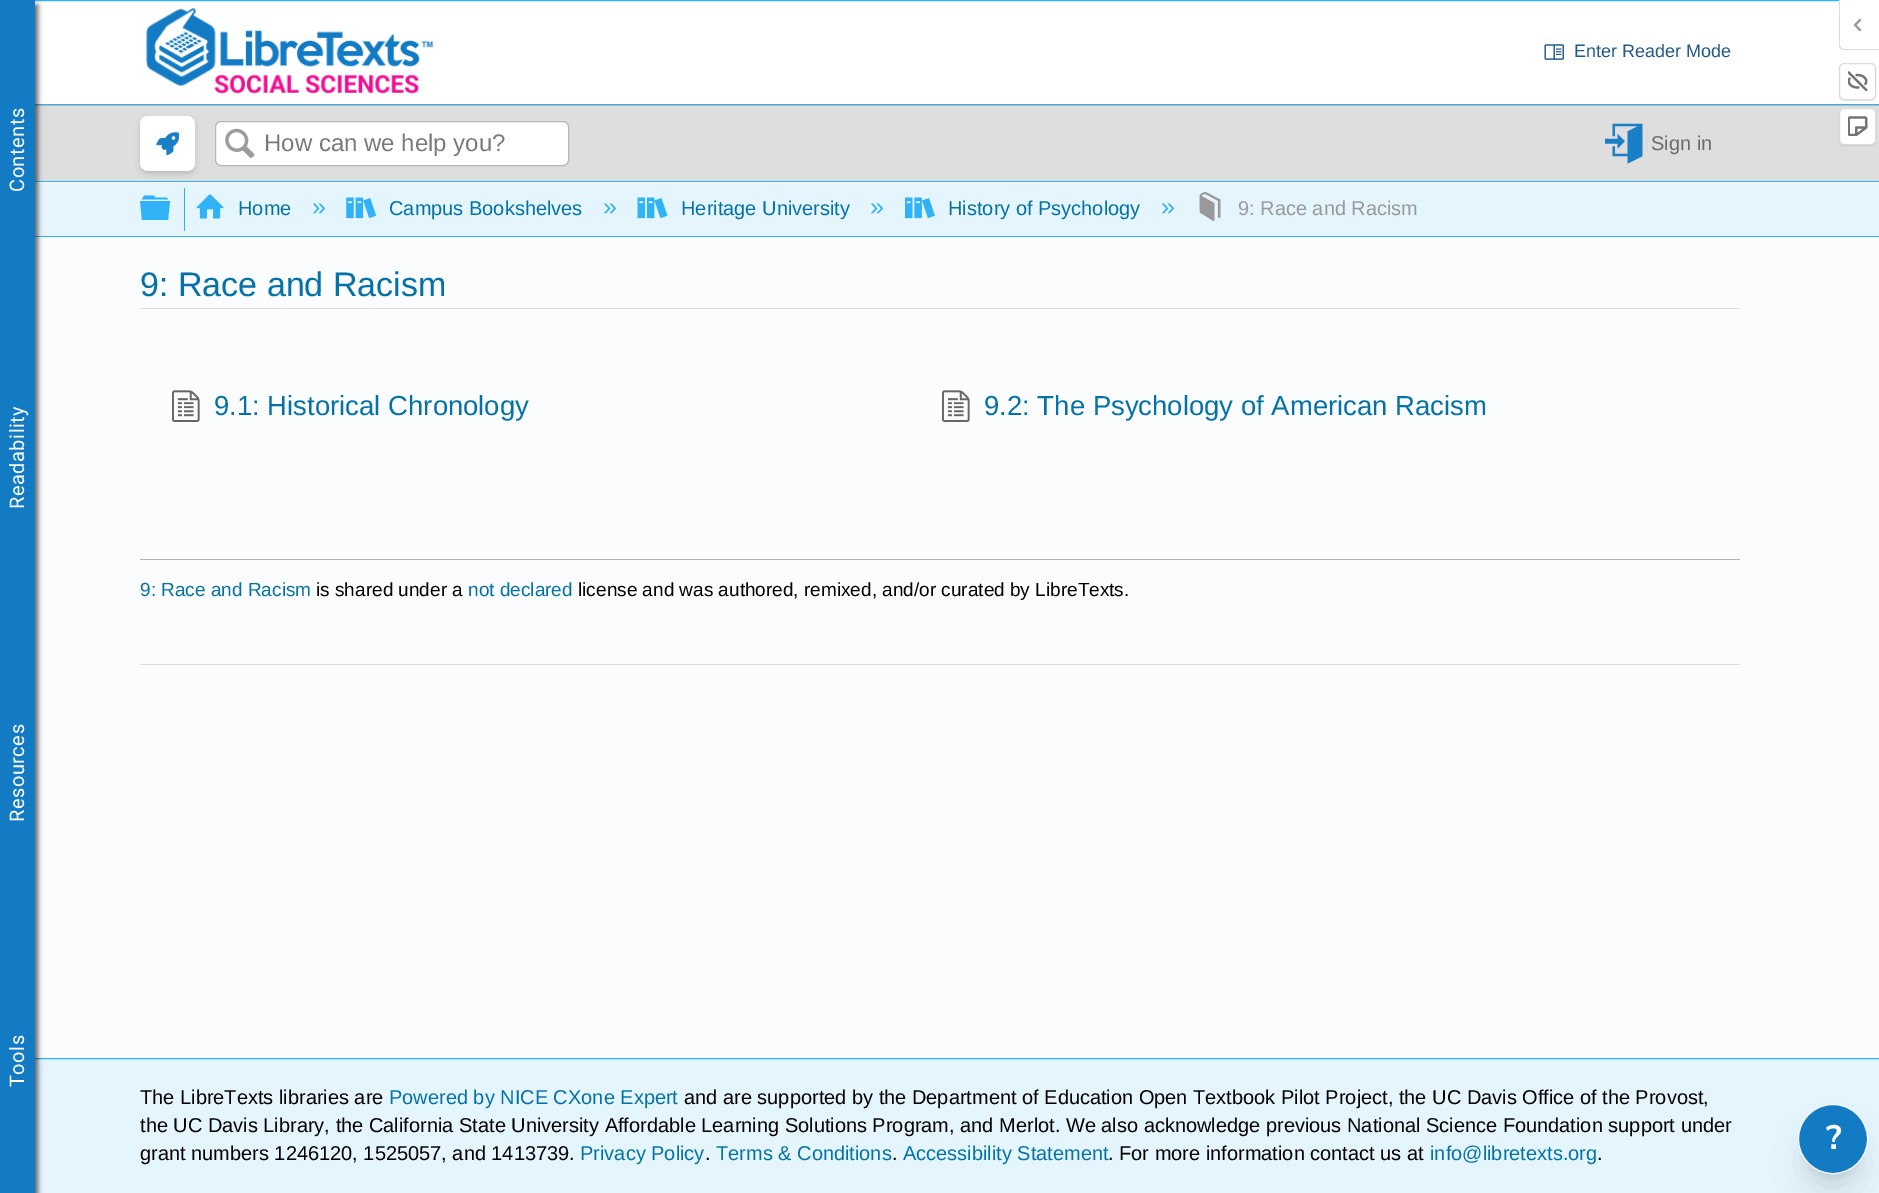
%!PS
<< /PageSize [1879 1193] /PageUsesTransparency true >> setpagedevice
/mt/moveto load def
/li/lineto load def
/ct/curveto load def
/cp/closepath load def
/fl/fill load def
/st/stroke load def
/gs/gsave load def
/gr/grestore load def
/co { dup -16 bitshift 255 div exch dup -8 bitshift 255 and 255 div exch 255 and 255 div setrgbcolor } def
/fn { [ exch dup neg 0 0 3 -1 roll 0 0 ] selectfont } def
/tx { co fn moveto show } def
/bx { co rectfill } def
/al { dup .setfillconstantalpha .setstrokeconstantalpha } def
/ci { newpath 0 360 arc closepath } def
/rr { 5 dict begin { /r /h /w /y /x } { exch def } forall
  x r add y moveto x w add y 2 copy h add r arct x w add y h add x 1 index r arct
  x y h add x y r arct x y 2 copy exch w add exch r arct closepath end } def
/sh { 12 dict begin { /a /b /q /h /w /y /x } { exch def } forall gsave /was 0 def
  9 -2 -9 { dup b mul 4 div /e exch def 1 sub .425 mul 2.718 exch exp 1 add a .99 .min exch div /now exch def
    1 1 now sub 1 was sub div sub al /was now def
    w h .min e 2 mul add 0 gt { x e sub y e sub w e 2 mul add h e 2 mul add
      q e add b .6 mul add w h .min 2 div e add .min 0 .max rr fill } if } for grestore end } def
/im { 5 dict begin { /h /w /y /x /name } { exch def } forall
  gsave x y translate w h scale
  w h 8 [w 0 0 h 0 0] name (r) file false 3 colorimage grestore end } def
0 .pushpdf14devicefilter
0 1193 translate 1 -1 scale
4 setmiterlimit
0 0 1879 1193 16#FBFCFE bx
35 1 1844 103 16#FFFFFF bx
16#30B3F6 co
.5 .5 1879 104 rectstroke
35 106 1844 75 16#DEDEDE bx
35 105 1844 1 16#B6B6B6 bx
35 183 1844 53 16#E5F5FE bx
35 181 1844 1 16#30B3F6 bx
35 236 1844 1 16#30B3F6 bx
35 1059 1844 134 16#E5F5FE bx
16#30B3F6 co
.5 1058.5 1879 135 rectstroke
16#000000 co
3 5 35 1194 0 2.5 .6 sh
0 0 35 1193 16#127BC4 bx
(media/1.raw) 146 8 288 86 im
(media/2.raw) 1544 44 20 16 im
16#080808 co
141 120 53 53 6 3 .2 sh
16#FFFFFF co
140 116 55 55 8 rr fl
(media/3.raw) 156 132 23 24 im
215.5 121.5 353 44 5.5 rr gs fl gr
16#B6B6B6 co
st
(media/4.raw) 225 128 30 30 im
(media/5.raw) 1605 123 38 41 im
16#30B3F6 co
140 201 mt 170 201 li 168 220 li 142 220 li cp 167 197.5 mt 168 199.5 li 142 199.5 li 144 195.5 li 154 195.5 li 155 197.5 li cp fl
184 188 1 43 16#30B3F6 bx
(media/6.raw) 196 194 28 25 im
(media/7.raw) 346 197 31 22 im
(media/8.raw) 637 197 31 22 im
(media/9.raw) 905 197 30 22 im
(media/10.raw) 1199 192 22 29 im
140 308 1600 1 16#DDDDDD bx
(media/11.raw) 172 390 28 32 im
(media/11.raw) 942 390 28 32 im
140 559 1600 1 16#B4B4B4 bx
140 664 1600 1 16#DDDDDD bx
16#000000 co
1805 1121 55 55 27.5 6 .1 sh
1804 1135 57 58 28.5 15.5 .1 sh
16#127BC4 co
1833 1139 34.5 ci gs fl gr
16#FFFFFF co
st
1840 0 mt 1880 0 li 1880 49 li 1844 49 li 1842 49 1840 47 1840 45 ct cp fl
16#DBDBDB co
1839 0 mt 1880 0 li 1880 50 li 1844 50 li 1841 50 1839 48 1839 45 ct cp 1840 0 mt 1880 0 li 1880 49 li 1844 49 li 1842 49 1840 47 1840 45 ct cp eofill
(media/12.raw) 1853 18 9 14 im
16#000000 co
1839 64 37 37 5 .5 .1 sh
16#FFFFFF co
1839.5 63.5 36 36 4.5 rr gs fl gr
16#DBDBDB co
st
(media/13.raw) 1848 71 20 20 im
16#000000 co
1839 109 37 37 5 .5 .1 sh
16#FFFFFF co
1839.5 108.5 36 36 4.5 rr gs fl gr
16#DBDBDB co
st
(media/14.raw) 1848 116 20 20 im
/Roboto-Regular 20 fn
16#FFFFFF co
gs 24 192 translate -90 rotate 0 0 mt .5 0 (Contents) ashow gr
gs 24 509 translate -90 rotate 0 0 mt .5 0 (Readability) ashow gr
gs 24 822 translate -90 rotate 0 0 mt .5 0 (Resources) ashow gr
gs 24 1087 translate -90 rotate 0 0 mt .5 0 (Tools) ashow gr
(Enter Reader Mode) 1574 57 /LiberationSans-Regular 18 16#235A8B tx
(How can we help you?) 264 151 /LiberationSans-Regular 24 16#797979 tx
(Sign in) 1651 150 /LiberationSans-Regular 20 16#6A6B6B tx
(Home) 238 215 /LiberationSans-Regular 20 16#0372A6 tx
(») 312 215 /LiberationSans-Regular 25 16#30B3F6 tx
(Campus Bookshelves) 389 215 /LiberationSans-Regular 20 16#0372A6 tx
(») 603 215 /LiberationSans-Regular 25 16#30B3F6 tx
(Heritage University) 681 215 /LiberationSans-Regular 20 16#0372A6 tx
(») 870 215 /LiberationSans-Regular 25 16#30B3F6 tx
(History of Psychology) 948 215 /LiberationSans-Regular 20 16#0372A6 tx
(») 1161 215 /LiberationSans-Regular 25 16#30B3F6 tx
(9: Race and Racism) 1238 215 /LiberationSans-Regular 20 16#999999 tx
(9: Race and Racism) 140 296 /LiberationSans-Regular 34 16#0372A6 tx
(9.1: Historical Chronology) 214 415 /LiberationSans-Regular 27.5 16#0372A6 tx
(9.2: The Psychology of American Racism) 984 415 /LiberationSans-Regular 27.5 16#0372A6 tx
(9: Race and Racism) 140 596 /LiberationSans-Regular 19 16#0372A6 tx
(is shared under a) 316 596 /LiberationSans-Regular 19 16#000000 tx
(not declared) 468 596 /LiberationSans-Regular 19 16#0372A6 tx
(license and was authored, remixed, and/or curated by LibreTexts.) 578 596 /LiberationSans-Regular 19 16#000000 tx
(The LibreTexts libraries are) 140 1104 /LiberationSans-Regular 20 16#000000 tx
(Powered by NICE CXone Expert) 389 1104 /LiberationSans-Regular 20 16#0372A6 tx
(and are supported by the Department of Education Open Textbook Pilot Project, the UC Davis Office of the Provost,) 684 1104 /LiberationSans-Regular 20 16#000000 tx
(the UC Davis Library, the California State University Affordable Learning Solutions Program, and Merlot. We also acknowledge previous National Science Foundation support under) 140 1132 /LiberationSans-Regular 20 16#000000 tx
(grant numbers 1246120, 1525057, and 1413739.) 140 1160 /LiberationSans-Regular 20 16#000000 tx
(Privacy Policy) 580 1160 /LiberationSans-Regular 20 16#0372A6 tx
(.) 705 1160 /LiberationSans-Regular 20 16#000000 tx
(Terms & Conditions) 716 1160 /LiberationSans-Regular 20 16#0372A6 tx
(.) 892 1160 /LiberationSans-Regular 20 16#000000 tx
(Accessibility Statement) 903 1160 /LiberationSans-Regular 20 16#0372A6 tx
(. For more information contact us at) 1108 1160 /LiberationSans-Regular 20 16#000000 tx
(info@libretexts.org) 1430 1160 /LiberationSans-Regular 20 16#0372A6 tx
(.) 1597 1160 /LiberationSans-Regular 20 16#000000 tx
(?) 1826 1149 /NunitoSans-Bold 34 16#FFFFFF tx
.poppdf14devicefilter showpage
